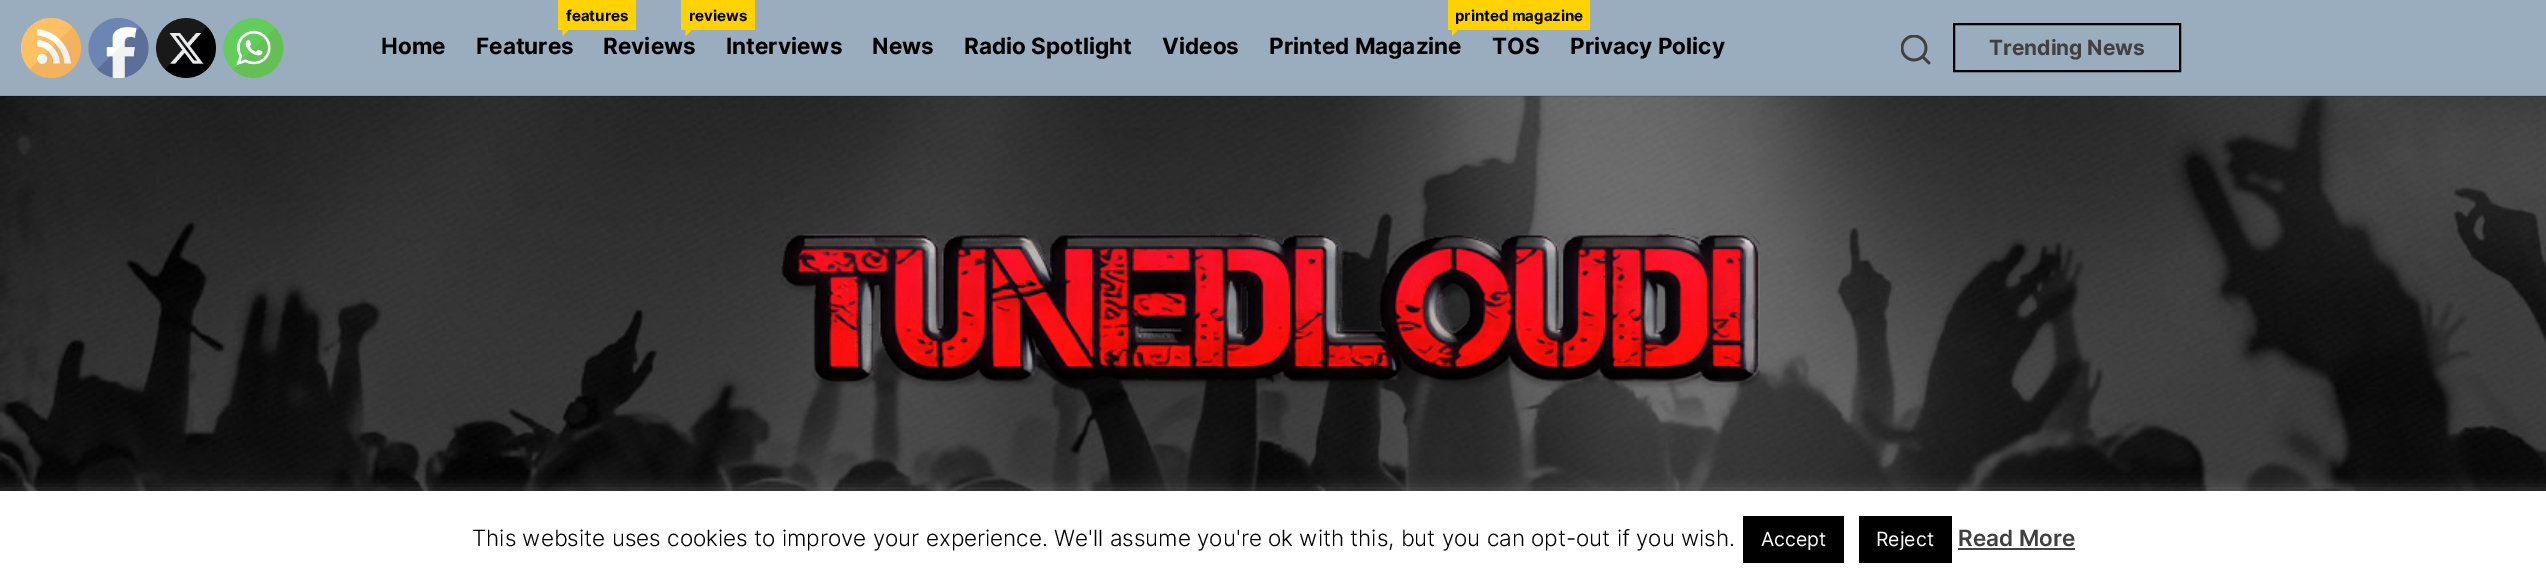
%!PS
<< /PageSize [2546 580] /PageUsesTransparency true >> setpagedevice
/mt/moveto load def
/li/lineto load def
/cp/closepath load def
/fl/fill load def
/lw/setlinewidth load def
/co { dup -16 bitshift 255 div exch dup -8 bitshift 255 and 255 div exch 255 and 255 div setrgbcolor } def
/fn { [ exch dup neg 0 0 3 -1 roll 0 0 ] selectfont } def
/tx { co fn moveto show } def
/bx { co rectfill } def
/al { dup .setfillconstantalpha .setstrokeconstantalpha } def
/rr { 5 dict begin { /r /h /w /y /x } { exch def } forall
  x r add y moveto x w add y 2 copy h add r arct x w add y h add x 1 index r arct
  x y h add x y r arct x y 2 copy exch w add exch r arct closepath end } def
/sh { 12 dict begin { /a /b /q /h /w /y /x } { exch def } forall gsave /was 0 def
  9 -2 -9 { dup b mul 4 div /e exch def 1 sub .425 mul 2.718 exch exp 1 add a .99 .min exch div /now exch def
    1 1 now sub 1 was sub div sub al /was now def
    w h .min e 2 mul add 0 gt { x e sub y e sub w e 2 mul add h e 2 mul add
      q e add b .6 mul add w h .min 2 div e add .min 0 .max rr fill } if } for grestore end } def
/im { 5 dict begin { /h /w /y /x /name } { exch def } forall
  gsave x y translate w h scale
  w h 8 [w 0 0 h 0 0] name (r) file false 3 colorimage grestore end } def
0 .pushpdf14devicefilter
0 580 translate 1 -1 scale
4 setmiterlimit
0 0 2546 580 16#9AADBF bx
(media/1.raw) 21 18 60 60 im
(media/2.raw) 88 18 61 60 im
(media/3.raw) 156 18 60 60 im
(media/4.raw) 223 18 61 60 im
(media/6.raw) 0 96 2546 395 im
0.1 al
0 95 2546 2 16#000000 bx
1 al
558 0 78 30 16#FFD200 bx
562.5 28.5 mt 570 28.5 li 562.5 36 li cp fl
681 0 74 30 16#FFD200 bx
685.5 28.5 mt 693 28.5 li 685.5 36 li cp fl
1448 0 142 30 16#FFD200 bx
1452 28.5 mt 1459.5 28.5 li 1452 36 li cp fl
(media/5.raw) 1901 35 30 30 im
16#000000 co
2 lw
1954 24 226 47 rectstroke
(media/7.raw) 778 228 983 160 im
16#ACABAB co
0 489 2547 90 0 7.5 .3 sh
0 491 2546 89 16#FFFFFF bx
1743 516 101 47 16#000000 bx
1859 516 93 47 16#000000 bx
1958 548 117 2 16#444444 bx
(Home) 381 54 /Inter-Bold 22.5 16#000000 tx
(features) 566 21 /Inter-Bold 15 16#000000 tx
(Features) 476 54 /Inter-Bold 22.5 16#000000 tx
(reviews) 689 21 /Inter-Bold 15 16#000000 tx
(Reviews) 603 54 /Inter-Bold 22.5 16#000000 tx
(Interviews) 726 54 /Inter-Bold 22.5 16#000000 tx
(News) 872 54 /Inter-Bold 22.5 16#000000 tx
(Radio Spotlight) 964 54 /Inter-Bold 22.5 16#000000 tx
(Videos) 1162 54 /Inter-Bold 22.5 16#000000 tx
(printed magazine) 1455 21 /Inter-Bold 15 16#000000 tx
(Printed Magazine) 1269 54 /Inter-Bold 22.5 16#000000 tx
(Privacy Policy) 1570 54 /Inter-Bold 22.5 16#000000 tx
(TOS) 1492 54 /Inter-Bold 22.5 16#000000 tx
(Trending News) 1989 55 /Inter-Bold 21 16#404040 tx
(This website uses cookies to improve your experience. We'll assume you're ok with this, but you can opt-out if you wish.) 472 546 /Inter-Light 22.5 16#000000 tx
(Accept) 1761 546 /Inter-Regular 19.5 16#FFFFFF tx
(Reject) 1876 546 /Inter-Regular 19.5 16#FFFFFF tx
(Read More) 1958 546 /Inter-SemiBold 22.5 16#404040 tx
.poppdf14devicefilter showpage
